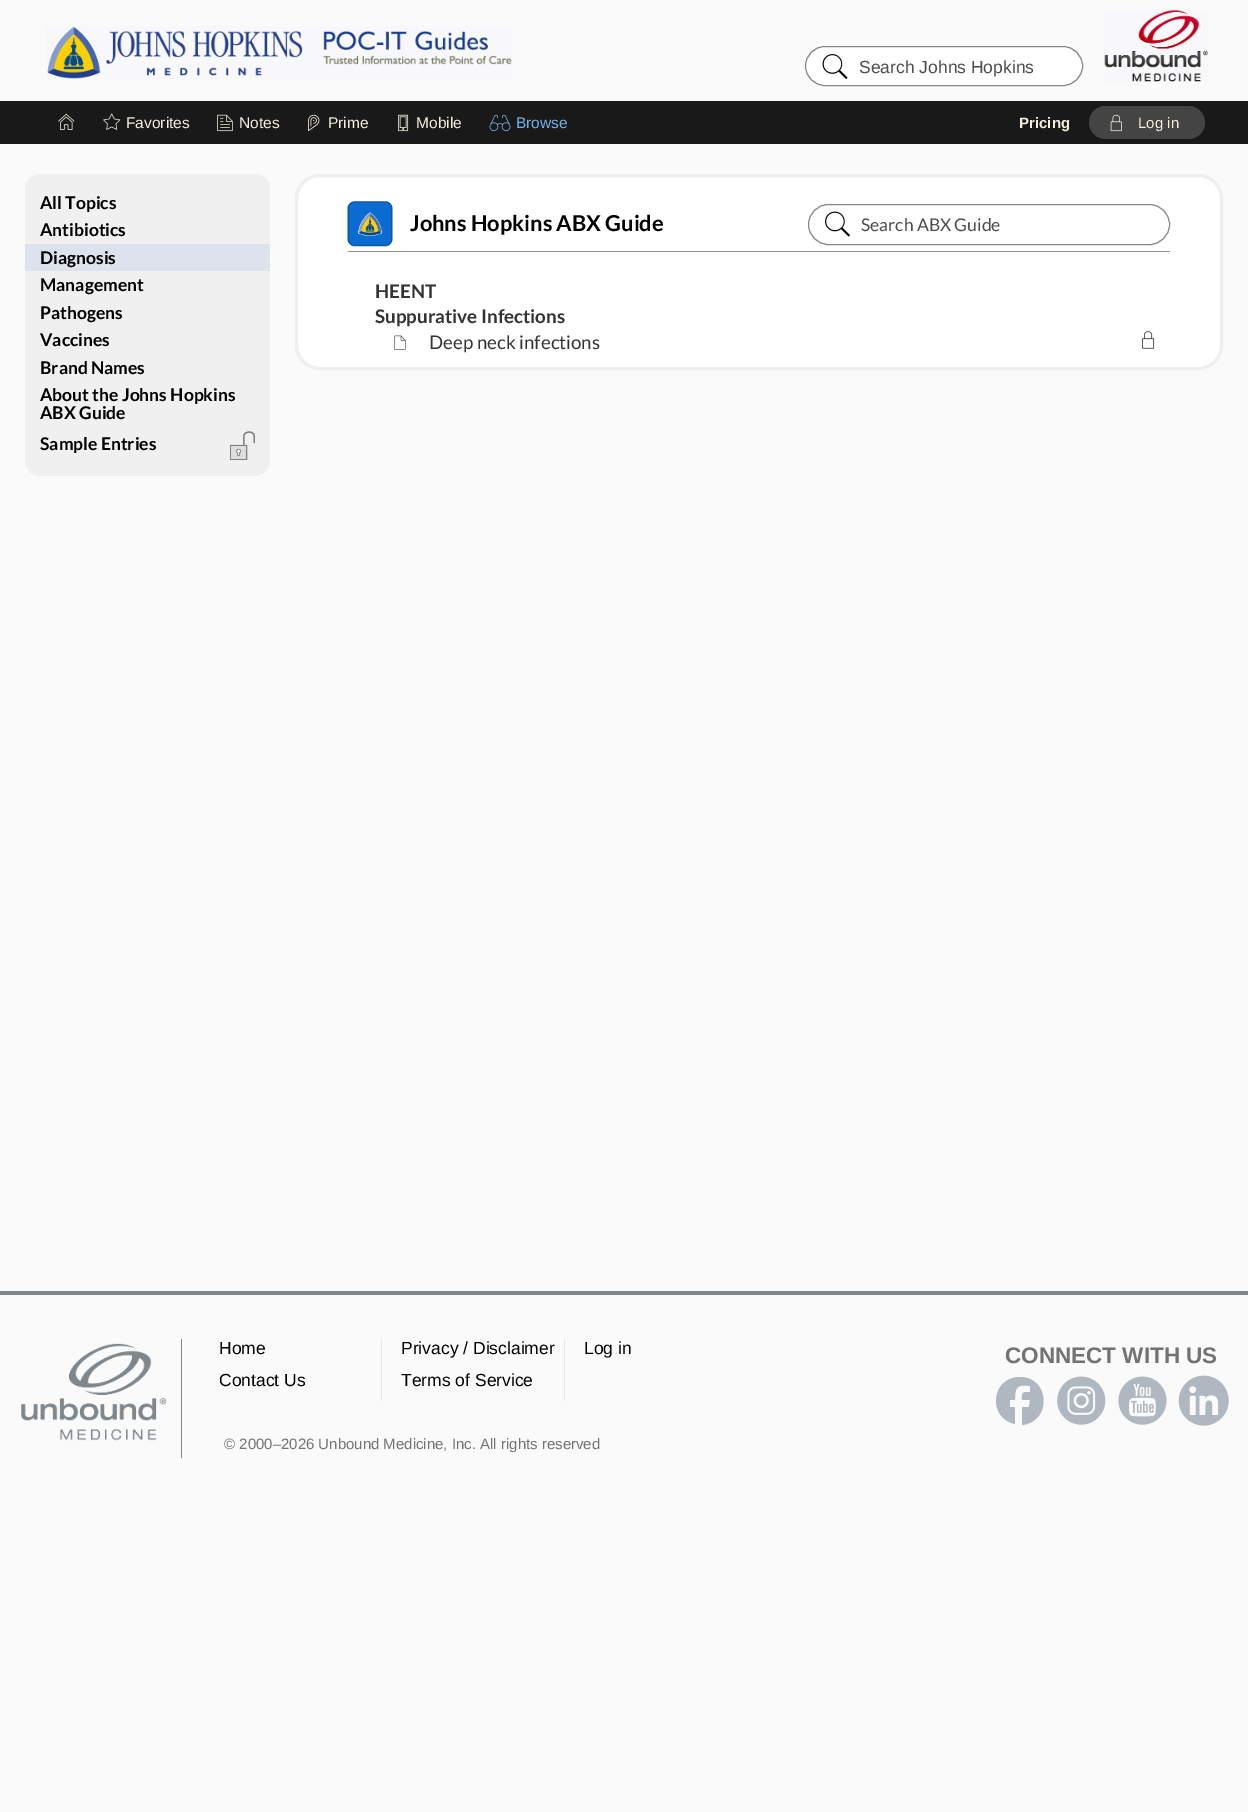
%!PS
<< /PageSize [1248 1812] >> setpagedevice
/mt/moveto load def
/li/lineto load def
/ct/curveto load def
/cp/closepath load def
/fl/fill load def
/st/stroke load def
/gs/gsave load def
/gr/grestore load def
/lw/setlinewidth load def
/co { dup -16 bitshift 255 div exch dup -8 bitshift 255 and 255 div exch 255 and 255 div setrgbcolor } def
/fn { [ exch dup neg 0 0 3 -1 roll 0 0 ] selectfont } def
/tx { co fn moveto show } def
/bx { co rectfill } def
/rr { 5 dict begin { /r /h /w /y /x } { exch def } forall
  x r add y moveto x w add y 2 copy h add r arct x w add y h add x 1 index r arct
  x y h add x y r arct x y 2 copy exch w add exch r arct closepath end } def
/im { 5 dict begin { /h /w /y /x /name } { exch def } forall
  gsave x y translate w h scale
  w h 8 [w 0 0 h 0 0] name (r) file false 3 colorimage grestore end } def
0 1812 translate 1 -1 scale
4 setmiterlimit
0 0 1248 1812 16#FAFAFA bx
(media/1.raw) 46 26 466 53 im
16#FFFFFF co
805.5 46.5 277 39 19.5 rr gs fl gr
16#878787 co
st
(media/2.raw) 822 54 26 25 im
(media/3.raw) 1104 10 104 72 im
0 101 1248 43 16#191919 bx
(media/4.raw) 58 113 17 17 im
(media/5.raw) 103 113 18 17 im
(media/6.raw) 217 114 16 18 im
(media/7.raw) 308 114 12 18 im
(media/8.raw) 398 114 11 18 im
(media/9.raw) 489 114 22 18 im
16#444444 co
1089 106 116 33 16.5 rr fl
(media/10.raw) 1110 114 12 18 im
16#F0F0F0 co
25 174 245 302 15 rr fl
25 244 245 27 16#DEE2ED bx
(media/11.raw) 230 431 25 29 im
16#FFFFFF co
296.5 175.5 925 193 23.5 rr gs fl gr
16#EFEFEF co
3 lw
st
348 251 822 1 16#909090 bx
(media/12.raw) 347 201 46 46 im
16#878787 co
1 lw
808.5 204.5 361 40 20 rr st
(media/13.raw) 825 211 25 26 im
(media/14.raw) 394 335 12 15 im
(media/15.raw) 1142 331 13 18 im
0 1291 1248 4 16#7F868C bx
181 1339 1 119 16#7F868C bx
(media/16.raw) 21 1343 146 98 im
381 1339 1 62 16#E4E7E9 bx
564 1339 1 62 16#E4E7E9 bx
16#AFB8C0 co
1020 1377 mt 991 1377 987 1418 1015 1424 ct 1015 1407 li 1010 1407 li 1010 1400 li 1015 1400 li 1015 1388 1016 1384 1030 1386 ct 1030 1392 li 1021 1392 1022 1393 1022 1400 ct 1030 1400 li 1029 1407 li 1022 1407 li 1022 1425 li 1052 1422 1050 1377 1020 1377 ct cp fl
(media/17.raw) 1057 1376 49 49 im
(media/18.raw) 1118 1376 49 49 im
(media/19.raw) 1178 1375 51 51 im
(Search Johns Hopkins) 859 73 /LiberationSans-Regular 17.5 16#4D4D4D tx
(Favorites) 126 128 /LiberationSans-Regular 15.5 16#F5EFE0 tx
(Notes) 239 128 /LiberationSans-Regular 15.5 16#F5EFE0 tx
(Prime) 328 128 /LiberationSans-Regular 15.5 16#F5EFE0 tx
(Mobile) 416 128 /LiberationSans-Regular 15.5 16#F5EFE0 tx
(Browse) 516 128 /LiberationSans-Regular 15.5 16#73B3E7 tx
(Pricing) 1019 128 /LiberationSans-Bold 15 16#F5EFE0 tx
(Log in) 1138 128 /LiberationSans-Regular 15 16#F5EFE0 tx
(All Topics) 40 209 /Lato-Bold 17.5 16#000000 tx
(Antibiotics) 40 236 /Lato-Bold 17.5 16#000000 tx
(Diagnosis) 40 264 /Lato-Bold 17.5 16#000000 tx
(Management) 40 291 /Lato-Bold 17.5 16#000000 tx
(Pathogens) 40 319 /Lato-Bold 17.5 16#000000 tx
(Vaccines) 40 346 /Lato-Bold 17.5 16#000000 tx
(Brand Names) 40 374 /Lato-Bold 17.5 16#000000 tx
(About the Johns Hopkins) 40 401 /Lato-Bold 17.5 16#000000 tx
(ABX Guide) 40 419 /Lato-Bold 17.5 16#000000 tx
(Sample Entries) 40 450 /Lato-Bold 17.5 16#000000 tx
(Johns Hopkins ABX Guide) 410 231 /Lato-Bold 21.9 16#000000 tx
(Search ABX Guide) 861 231 /Lato-Regular 17.5 16#4D4D4D tx
(HEENT) 375 298 /Lato-Bold 18.75 16#333333 tx
(Suppurative Infections) 375 323 /Lato-Bold 18.75 16#333333 tx
(Deep neck infections) 429 349 /Lato-Regular 18.75 16#333333 tx
(Home) 219 1354 /LiberationSans-Regular 17.5 16#000000 tx
(Contact Us) 219 1386 /LiberationSans-Regular 17.5 16#000000 tx
(Privacy / Disclaimer) 401 1354 /LiberationSans-Regular 17.5 16#000000 tx
(Terms of Service) 401 1386 /LiberationSans-Regular 17.5 16#000000 tx
(Log in) 584 1354 /LiberationSans-Regular 17.5 16#000000 tx
(CONNECT WITH US) 1005 1363 /LiberationSans-Bold 22.5 16#737373 tx
(© 2000–2026 Unbound Medicine, Inc. All rights reserved) 224 1449 /LiberationSans-Regular 15 16#737373 tx
showpage
